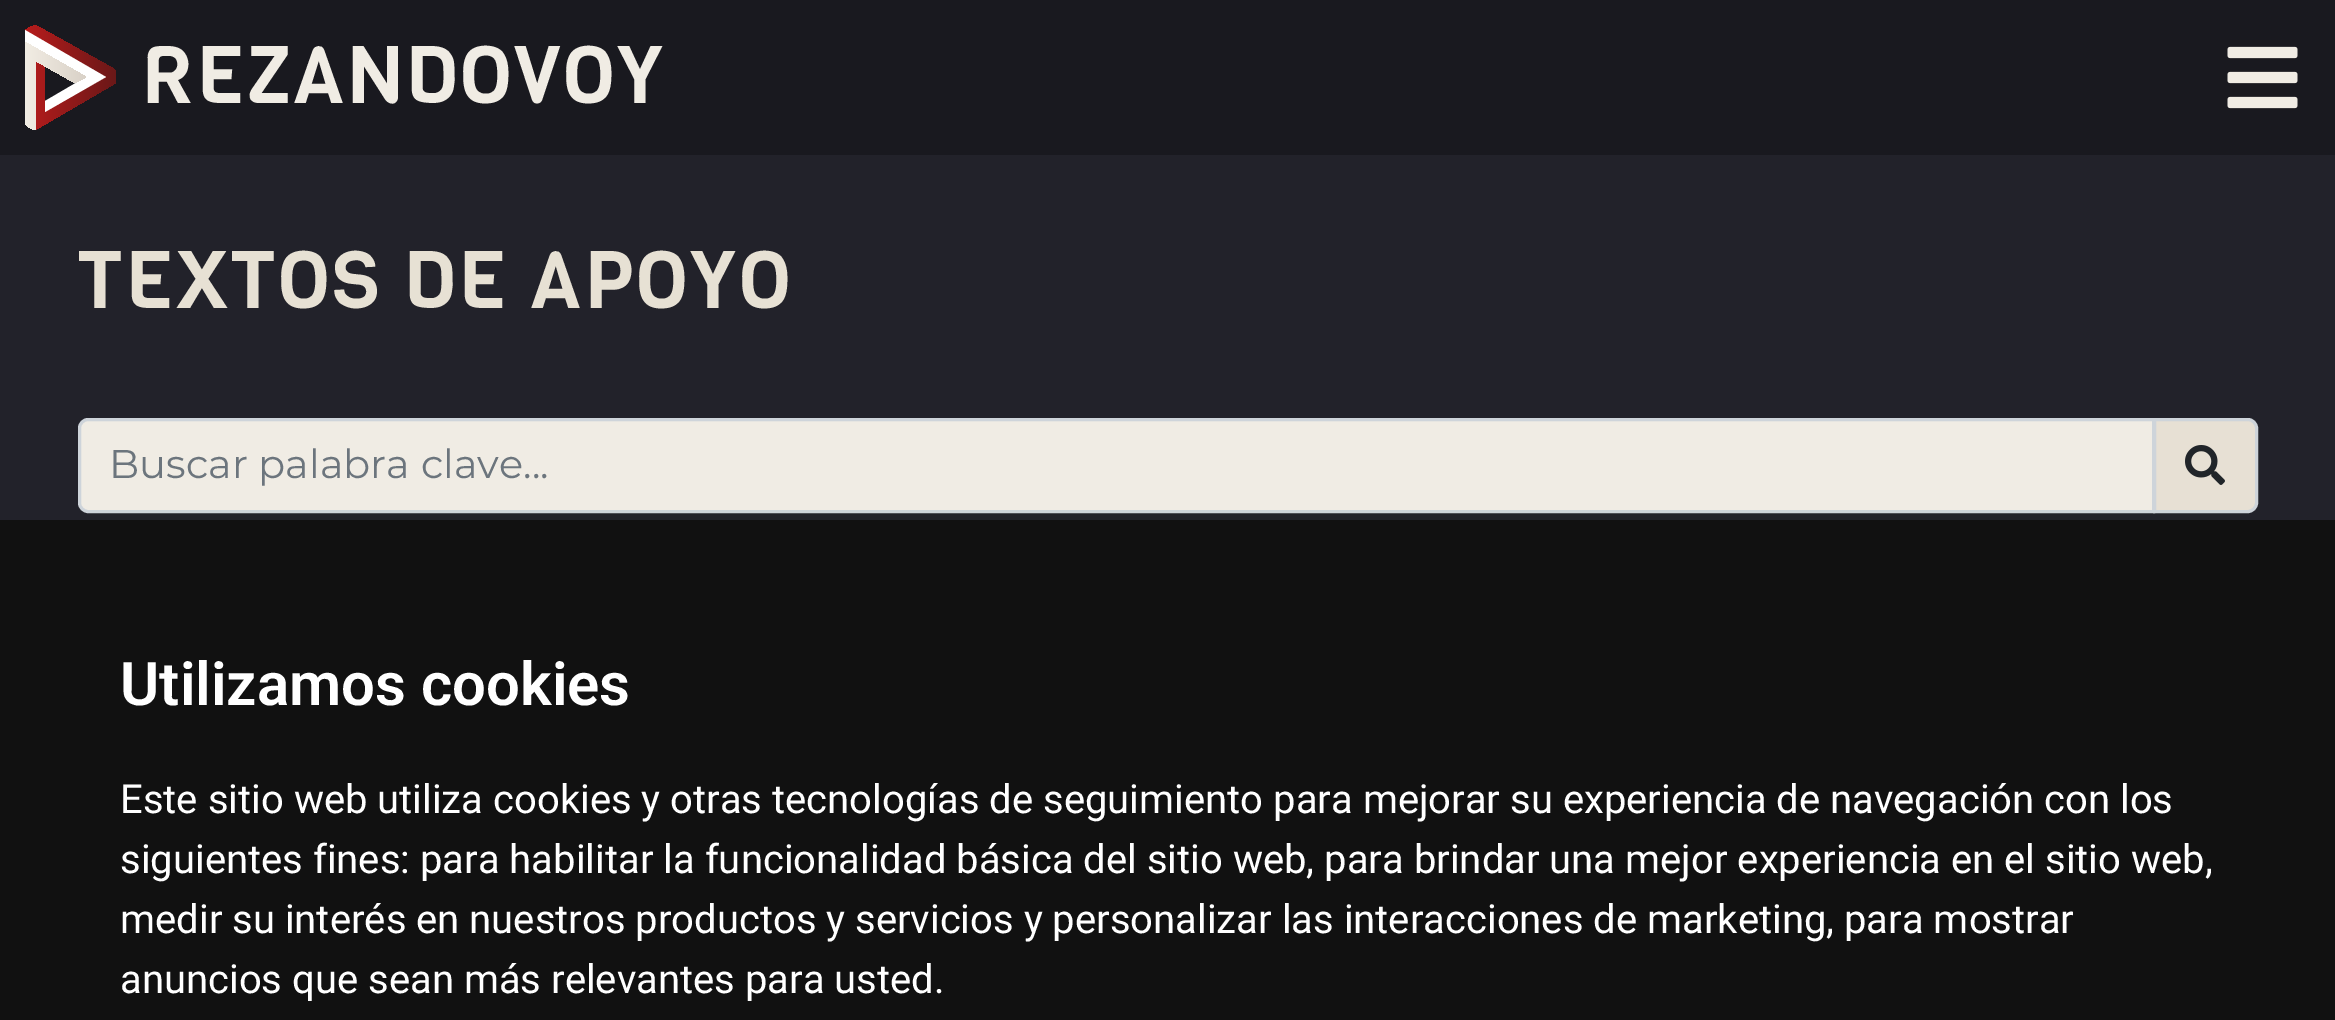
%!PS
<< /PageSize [2335 1020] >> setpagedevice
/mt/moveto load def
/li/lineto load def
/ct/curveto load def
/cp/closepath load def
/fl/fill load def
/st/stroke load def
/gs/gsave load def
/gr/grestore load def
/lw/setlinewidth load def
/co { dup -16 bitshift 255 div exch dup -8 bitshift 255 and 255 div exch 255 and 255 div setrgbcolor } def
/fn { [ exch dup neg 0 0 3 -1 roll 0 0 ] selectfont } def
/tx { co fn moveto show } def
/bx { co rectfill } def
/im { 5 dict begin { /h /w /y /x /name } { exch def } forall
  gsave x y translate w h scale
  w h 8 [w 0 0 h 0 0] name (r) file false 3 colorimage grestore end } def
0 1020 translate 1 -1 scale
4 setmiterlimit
0 0 2335 1020 16#22222A bx
0 0 2335 155 16#19191F bx
gs 37 26 mt 114 69 li 115 70 116 72 116 73 ct 116 81 li 116 82 115 84 114 84 ct 35 130 li 36 61 li 45 66 li 45 112 li 106 77 li 25 30 li 28 29 34 24 37 26 ct cp clip newpath
<< /ShadingType 2 /ColorSpace /DeviceRGB /Coords [25 25 116 25] /Extend [true true] /Function << /FunctionType 2 /Domain [0 1] /C0 [.718 .11 .11] /C1 [.416 .094 .094] /N 1 >> >> shfill gr
16#FFFFFF co
25 42 mt 86 77 li 45 101 li 45 112 li 106 77 li 25 30 li cp fl
gs 25 122 mt 25 42 li 86 77 li 75 83 li 36 61 li 35 130 li 32 129 25 126 25 122 ct cp clip newpath
<< /ShadingType 2 /ColorSpace /DeviceRGB /Coords [25 42 86 42] /Extend [true true] /Function << /FunctionType 2 /Domain [0 1] /C0 [.949 .929 .894] /C1 [.851 .82 .78] /N 1 >> >> shfill gr
(media/1.raw) 2227 46 71 63 im
16#E7E0D4 co
2154.5 419.5 mt 2248 419.5 li 2252.5 419.5 2256.5 423.5 2256.5 428 ct 2256.5 503 li 2256.5 507.5 2252.5 511.5 2248 511.5 ct 2154.5 511.5 li cp gs fl gr
16#CED4DA co
3 lw
st
16#F0ECE4 co
88 419.5 mt 2153.5 419.5 li 2153.5 511.5 li 88 511.5 li 83.5 511.5 79.5 507.5 79.5 503 ct 79.5 428 li 79.5 423.5 83.5 419.5 88 419.5 ct cp gs fl gr
16#CED4DA co
st
(media/2.raw) 2185 445 40 40 im
0 520 2335 500 16#111111 bx
/Viga-Regular 80 fn
16#F0ECE4 co
141 103 mt 2.5 0 (REZANDOVOY) ashow
16#E7E1D4 co
77 308 mt 2.5 0 (TEXTOS DE APOYO) ashow
(Buscar palabra clave...) 109 478 /Montserrat-Regular 40 16#6C757D tx
(Utilizamos cookies) 120 705 /Roboto-SemiBold 60 16#FFFFFF tx
(Este sitio web utiliza cookies y otras tecnologías de seguimiento para mejorar su experiencia de navegación con los) 120 813 /Roboto-Regular 40 16#FFFFFF tx
(siguientes fines: para habilitar la funcionalidad básica del sitio web, para brindar una mejor experiencia en el sitio web,) 120 873 /Roboto-Regular 40 16#FFFFFF tx
(medir su interés en nuestros productos y servicios y personalizar las interacciones de marketing, para mostrar) 120 933 /Roboto-Regular 40 16#FFFFFF tx
(anuncios que sean más relevantes para usted.) 120 993 /Roboto-Regular 40 16#FFFFFF tx
showpage
